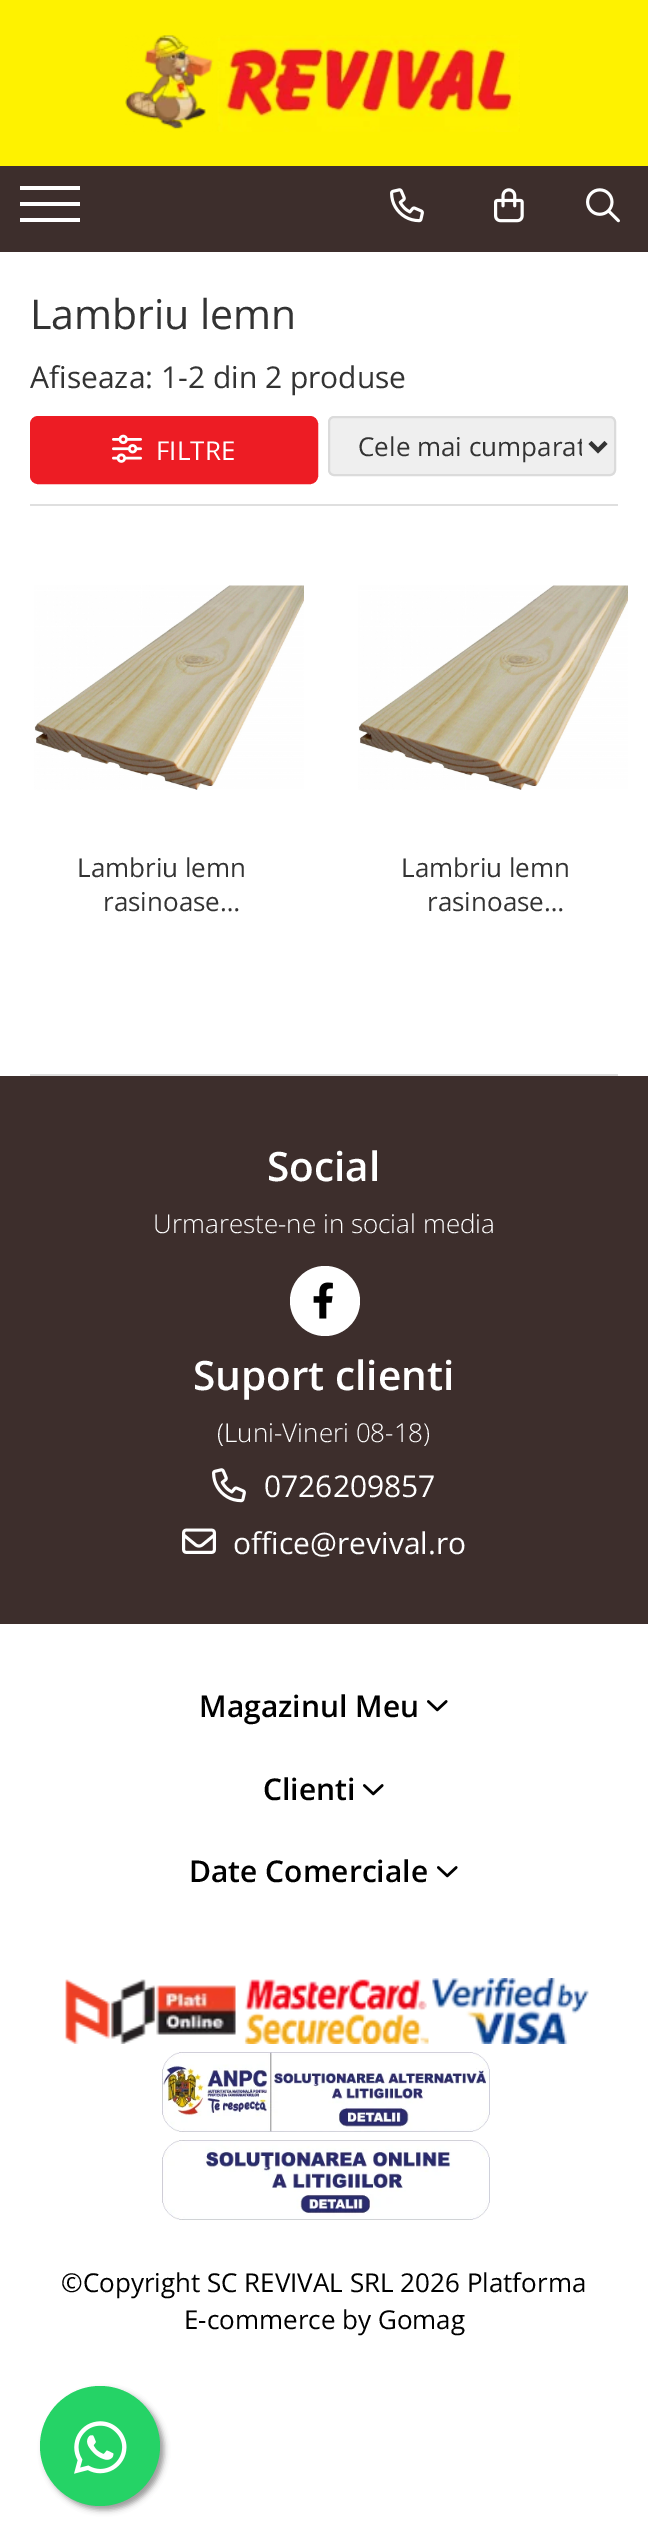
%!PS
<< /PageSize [648 2545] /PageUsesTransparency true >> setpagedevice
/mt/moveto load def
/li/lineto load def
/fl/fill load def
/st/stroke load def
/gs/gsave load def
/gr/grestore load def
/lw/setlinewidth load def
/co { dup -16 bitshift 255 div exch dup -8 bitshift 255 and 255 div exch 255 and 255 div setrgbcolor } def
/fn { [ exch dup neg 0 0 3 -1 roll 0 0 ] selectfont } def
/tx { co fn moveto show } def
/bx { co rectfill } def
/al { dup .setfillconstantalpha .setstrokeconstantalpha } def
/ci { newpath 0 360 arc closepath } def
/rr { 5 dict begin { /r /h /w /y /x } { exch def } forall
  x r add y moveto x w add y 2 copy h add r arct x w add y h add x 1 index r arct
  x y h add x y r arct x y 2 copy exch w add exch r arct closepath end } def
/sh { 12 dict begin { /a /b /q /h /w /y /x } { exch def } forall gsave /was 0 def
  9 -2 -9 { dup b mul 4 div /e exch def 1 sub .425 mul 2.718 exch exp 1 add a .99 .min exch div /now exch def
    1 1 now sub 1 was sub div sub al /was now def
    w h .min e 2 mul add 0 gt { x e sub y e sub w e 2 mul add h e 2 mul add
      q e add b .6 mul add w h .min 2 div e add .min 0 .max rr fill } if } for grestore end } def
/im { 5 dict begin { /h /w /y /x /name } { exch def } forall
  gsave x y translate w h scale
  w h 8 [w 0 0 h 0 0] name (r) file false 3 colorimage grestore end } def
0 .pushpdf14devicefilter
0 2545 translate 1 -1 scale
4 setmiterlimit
0 0 648 2545 16#FFFFFF bx
0 0 648 166 16#FEF200 bx
(media/1.raw) 125 35 395 97 im
0 166 648 86 16#3D2E2C bx
20 202 60 4 16#FFFFFF bx
20 186 60 4 16#FFFFFF bx
20 218 60 4 16#FFFFFF bx
(media/2.raw) 390 188 34 35 im
(media/3.raw) 494 188 30 35 im
(media/4.raw) 586 188 34 35 im
30 504 588 2 16#DFDFDF bx
16#ED1C24 co
31 417 286 66 7 rr gs fl gr
2 lw
st
(media/5.raw) 112 434 30 29 im
16#EFEFEF co
329 417 286 58 5 rr gs fl gr
16#DBDBDB co
st
16#333333 co
4 lw
590 442.5 mt 598 450.5 li 606 442.5 li st
30 1074 588 2 16#DFDFDF bx
(media/6.raw) 34 585 270 205 im
(media/6.raw) 358 585 270 205 im
0 1076 648 548 16#3D2E2C bx
16#FFFFFF co
325 1301 35 ci fl
(media/7.raw) 313 1282 20 37 im
(media/2.raw) 212 1468 34 35 im
(media/8.raw) 182 1528 34 26 im
(media/9.raw) 427 1700 21 12 im
(media/9.raw) 363 1784 21 12 im
(media/9.raw) 437 1866 21 12 im
(media/10.raw) 65 1978 524 66 im
(media/11.raw) 162 2052 328 80 im
(media/12.raw) 162 2140 328 80 im
16#999999 co
44 2390 120 120 60 3 1 sh
16#25D366 co
100 2446 60 ci fl
(media/13.raw) 74 2421 53 53 im
(Lambriu lemn) 30 329 /OpenSans-Regular 41 16#333333 tx
(Afiseaza: 1-2 din 2 produse) 30 388 /OpenSans-Regular 30 16#333333 tx
(FILTRE) 156 460 /OpenSans-Regular 26 16#FFFFFF tx
gs
358 426 224 40 rectclip
(Cele mai cumparat) 358 456 /OpenSans-Regular 26 16#333333 tx
gr
(Lambriu lemn) 77 877 /OpenSans-Regular 26 16#333333 tx
(rasinoase…) 103 911 /OpenSans-Regular 26 16#333333 tx
(Lambriu lemn) 401 877 /OpenSans-Regular 26 16#333333 tx
(rasinoase…) 427 911 /OpenSans-Regular 26 16#333333 tx
(Social) 267 1181 /OpenSans-SemiBold 40.5 16#FFFFFF tx
(Urmareste-ne in social media) 153 1233 /OpenSans-Light 26 16#FFFFFF tx
(Suport clienti) 193 1390 /OpenSans-SemiBold 40.5 16#FFFFFF tx
(\(Luni-Vineri 08-18\)) 217 1442 /OpenSans-Light 26 16#FFFFFF tx
(0726209857) 264 1497 /OpenSans-Regular 30 16#FFFFFF tx
(office@revival.ro) 233 1554 /OpenSans-Regular 30 16#FFFFFF tx
(Magazinul Meu) 199 1717 /OpenSans-SemiBold 30 16#000000 tx
(Clienti) 263 1800 /OpenSans-SemiBold 30 16#000000 tx
(Date Comerciale) 189 1882 /OpenSans-SemiBold 30 16#000000 tx
(©Copyright SC REVIVAL SRL 2026 Platforma) 61 2292 /OpenSans-Regular 26 16#000000 tx
(E-commerce by Gomag) 184 2329 /OpenSans-Regular 26 16#000000 tx
.poppdf14devicefilter showpage
